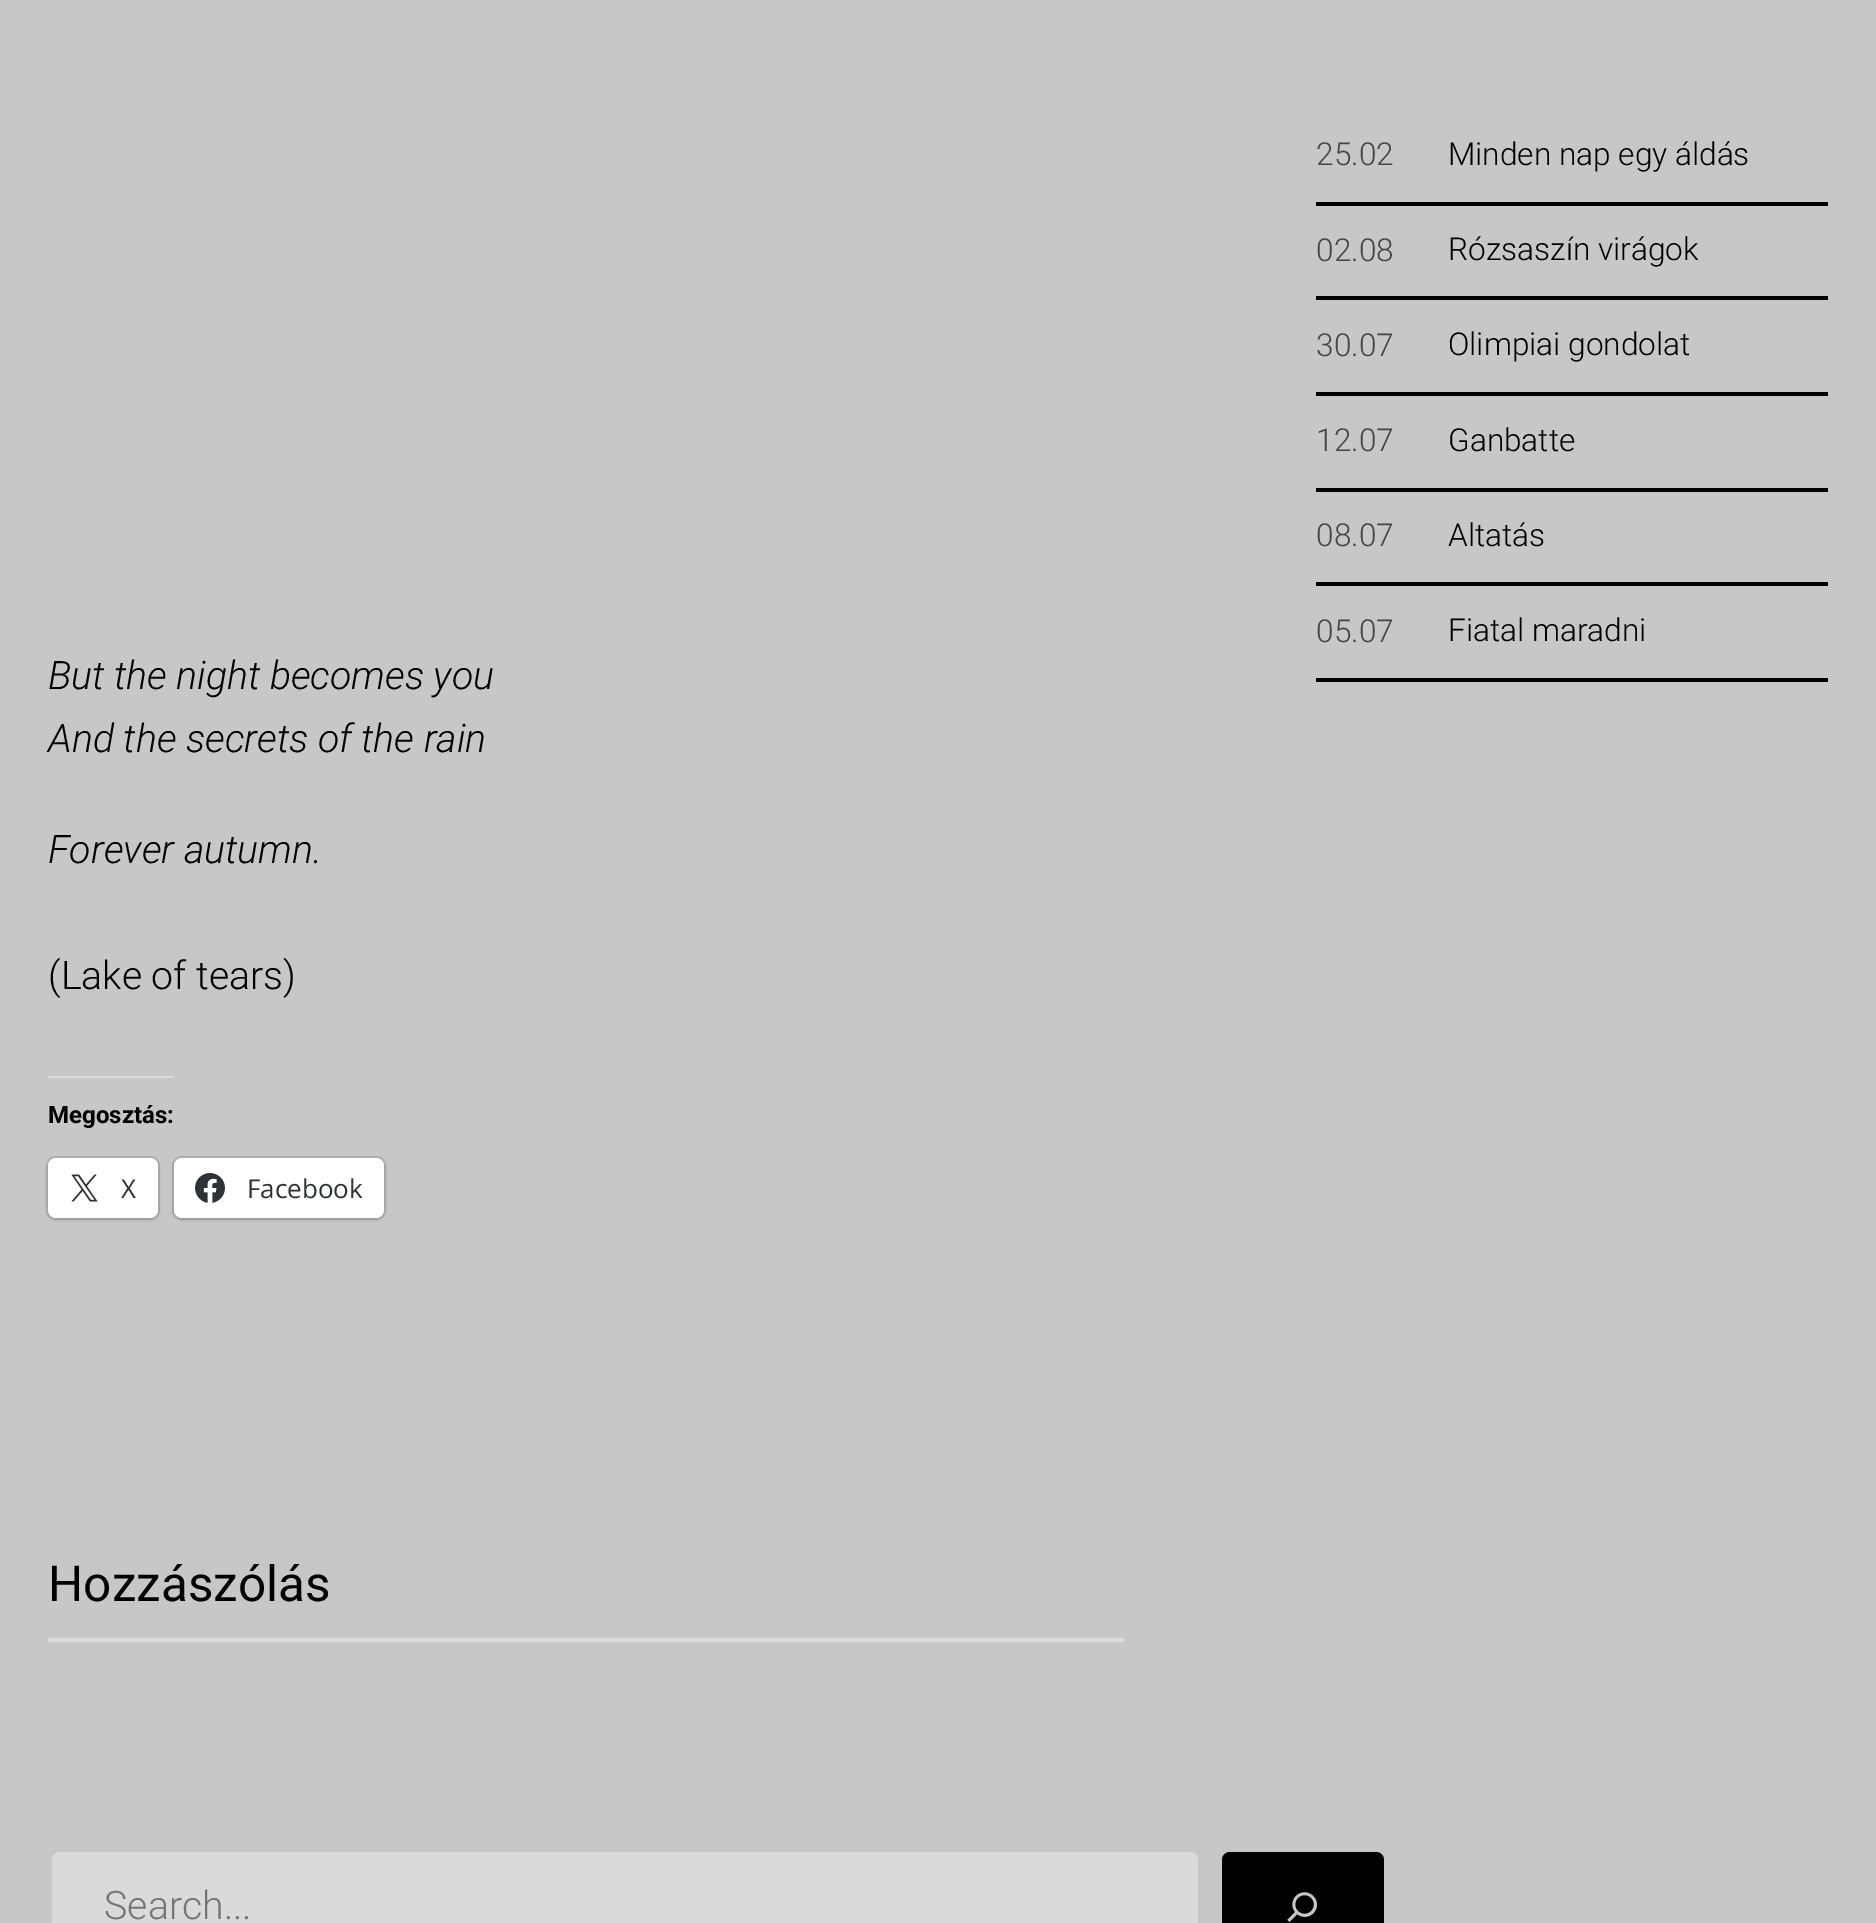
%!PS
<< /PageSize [1876 1923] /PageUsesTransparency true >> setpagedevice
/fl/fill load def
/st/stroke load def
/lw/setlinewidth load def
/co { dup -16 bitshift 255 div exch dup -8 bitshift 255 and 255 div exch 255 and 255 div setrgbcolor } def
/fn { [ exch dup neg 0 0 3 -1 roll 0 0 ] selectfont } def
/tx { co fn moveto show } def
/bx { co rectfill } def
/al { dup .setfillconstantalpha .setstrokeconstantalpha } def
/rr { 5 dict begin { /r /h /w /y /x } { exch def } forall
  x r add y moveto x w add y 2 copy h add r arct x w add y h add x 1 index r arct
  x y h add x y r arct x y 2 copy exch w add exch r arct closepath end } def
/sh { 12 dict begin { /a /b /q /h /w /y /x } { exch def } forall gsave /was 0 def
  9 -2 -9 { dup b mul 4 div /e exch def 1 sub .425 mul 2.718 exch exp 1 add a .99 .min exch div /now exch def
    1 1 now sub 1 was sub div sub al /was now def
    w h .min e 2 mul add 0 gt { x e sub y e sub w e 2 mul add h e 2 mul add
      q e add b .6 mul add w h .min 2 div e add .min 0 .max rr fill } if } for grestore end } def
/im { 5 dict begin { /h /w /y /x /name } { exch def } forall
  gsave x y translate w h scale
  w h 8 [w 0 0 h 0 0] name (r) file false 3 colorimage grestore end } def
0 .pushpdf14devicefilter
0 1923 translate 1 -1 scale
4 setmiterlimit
0 0 1876 1923 16#C7C7C7 bx
1316 202 512 4 16#000000 bx
1316 296 512 4 16#000000 bx
1316 392 512 4 16#000000 bx
1316 488 512 4 16#000000 bx
1316 582 512 4 16#000000 bx
1316 678 512 4 16#000000 bx
48 1076 126 2 16#DCDCDE bx
16#AFAFAF co
2 lw
47 1157 112 62 9 rr st
16#000000 co
48 1160 110 60 8 2 .12 sh
16#FFFFFF co
48 1158 110 60 8 rr fl
(media/1.raw) 71 1174 27 28 im
16#AFAFAF co
173 1157 212 62 9 rr st
16#000000 co
174 1160 210 60 8 2 .12 sh
16#FFFFFF co
174 1158 210 60 8 rr fl
(media/2.raw) 195 1173 30 30 im
48 1638 1076 4 16#DCDCDE bx
16#DADADA co
52 1852 1146 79 8 rr fl
16#000000 co
1222 1852 162 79 8 rr fl
(media/3.raw) 1287 1892 30 30 im
(25.02) 1316 165 /Roboto-Light 31.6 16#454545 tx
(Minden nap egy áldás) 1448 165 /Roboto-Light 31.6 16#000000 tx
(02.08) 1316 261 /Roboto-Light 31.6 16#454545 tx
(Rózsaszín virágok) 1448 260 /Roboto-Light 31.6 16#000000 tx
(30.07) 1316 356 /Roboto-Light 31.6 16#454545 tx
(Olimpiai gondolat) 1448 355 /Roboto-Light 31.6 16#000000 tx
(12.07) 1316 451 /Roboto-Light 31.6 16#454545 tx
(Ganbatte) 1448 451 /Roboto-Light 31.6 16#000000 tx
(08.07) 1316 546 /Roboto-Light 31.6 16#454545 tx
(Altatás) 1448 546 /Roboto-Light 31.6 16#000000 tx
(05.07) 1316 642 /Roboto-Light 31.6 16#454545 tx
(Fiatal maradni) 1448 641 /Roboto-Light 31.6 16#000000 tx
(But the night becomes you) 48 689 /Roboto-LightItalic 39.25 16#000000 tx
(And the secrets of the rain) 48 752 /Roboto-LightItalic 39.25 16#000000 tx
(Forever autumn.) 48 863 /Roboto-LightItalic 39.25 16#000000 tx
(\(Lake of tears\)) 48 989 /Roboto-Light 39.25 16#000000 tx
(Megosztás:) 48 1123 /Roboto-Bold 24 16#000000 tx
(X) 121 1198 /OpenSans-Regular 26 16#2C3338 tx
(Facebook) 247 1198 /OpenSans-Regular 26 16#2C3338 tx
(Hozzászólás) 48 1601 /Roboto-Regular 49.5 16#000000 tx
(Search...) 104 1919 /Roboto-Light 39.25 16#757575 tx
.poppdf14devicefilter showpage
